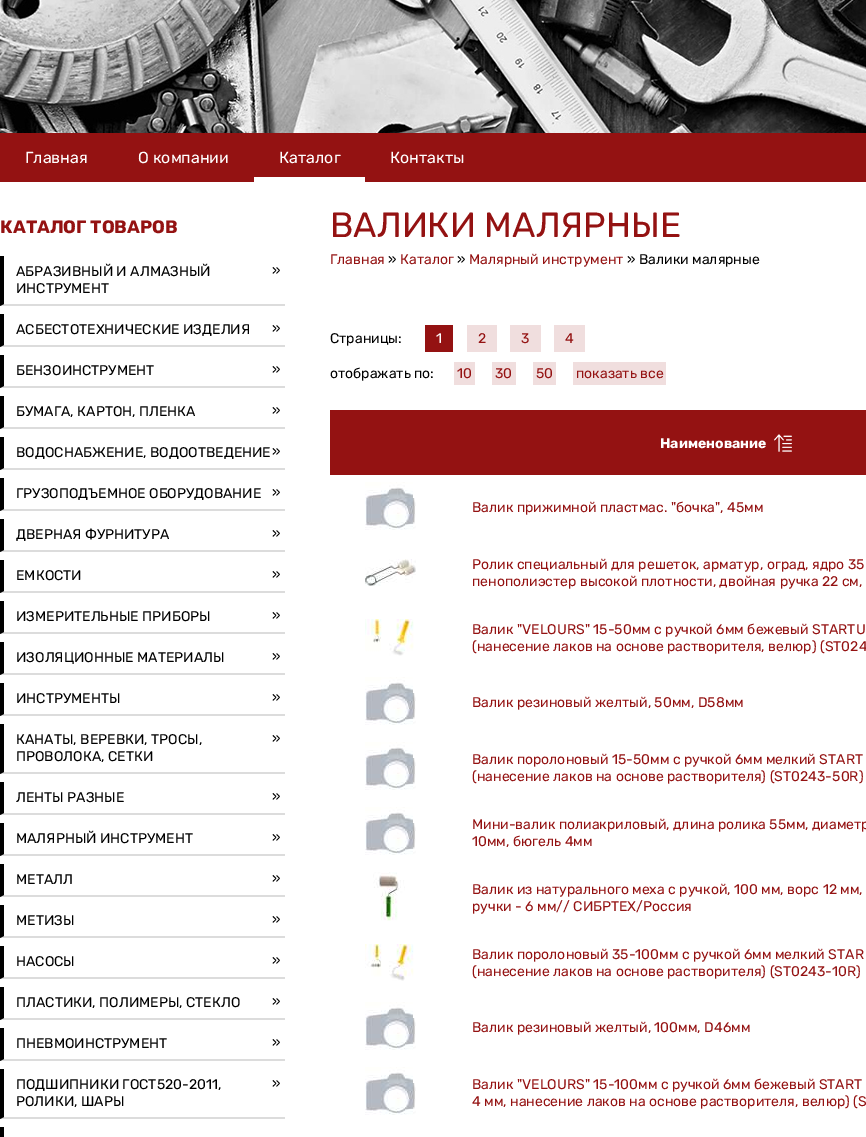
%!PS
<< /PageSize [866 1137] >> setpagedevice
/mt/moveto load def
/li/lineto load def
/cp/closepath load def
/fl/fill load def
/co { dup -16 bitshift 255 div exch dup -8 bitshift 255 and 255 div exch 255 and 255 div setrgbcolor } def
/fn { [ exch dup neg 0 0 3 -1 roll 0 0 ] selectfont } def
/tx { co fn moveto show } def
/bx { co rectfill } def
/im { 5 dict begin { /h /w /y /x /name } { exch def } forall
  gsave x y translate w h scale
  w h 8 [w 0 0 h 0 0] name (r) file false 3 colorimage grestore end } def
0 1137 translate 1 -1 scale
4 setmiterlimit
0 0 866 1137 16#FFFFFF bx
(media/1.raw) 0 0 866 133 im
0 133 866 49 16#941212 bx
254 177 111 5 16#FFFFFF bx
16#DCDCDC co
285 306 mt 0 306 li 4 304 li 285 304 li cp fl
16#000000 co
0 306 mt 0 256 li 4 256 li 4 304 li cp fl
16#DCDCDC co
285 347 mt 0 347 li 4 345 li 285 345 li cp fl
16#000000 co
0 347 mt 0 314 li 4 314 li 4 345 li cp fl
16#DCDCDC co
285 388 mt 0 388 li 4 386 li 285 386 li cp fl
16#000000 co
0 388 mt 0 355 li 4 355 li 4 386 li cp fl
16#DCDCDC co
285 429 mt 0 429 li 4 427 li 285 427 li cp fl
16#000000 co
0 429 mt 0 396 li 4 396 li 4 427 li cp fl
16#DCDCDC co
285 470 mt 0 470 li 4 468 li 285 468 li cp fl
16#000000 co
0 470 mt 0 437 li 4 437 li 4 468 li cp fl
16#DCDCDC co
285 511 mt 0 511 li 4 509 li 285 509 li cp fl
16#000000 co
0 511 mt 0 478 li 4 478 li 4 509 li cp fl
16#DCDCDC co
285 552 mt 0 552 li 4 550 li 285 550 li cp fl
16#000000 co
0 552 mt 0 519 li 4 519 li 4 550 li cp fl
16#DCDCDC co
285 593 mt 0 593 li 4 591 li 285 591 li cp fl
16#000000 co
0 593 mt 0 560 li 4 560 li 4 591 li cp fl
16#DCDCDC co
285 634 mt 0 634 li 4 632 li 285 632 li cp fl
16#000000 co
0 634 mt 0 601 li 4 601 li 4 632 li cp fl
16#DCDCDC co
285 675 mt 0 675 li 4 673 li 285 673 li cp fl
16#000000 co
0 675 mt 0 642 li 4 642 li 4 673 li cp fl
16#DCDCDC co
285 716 mt 0 716 li 4 714 li 285 714 li cp fl
16#000000 co
0 716 mt 0 683 li 4 683 li 4 714 li cp fl
16#DCDCDC co
285 774 mt 0 774 li 4 772 li 285 772 li cp fl
16#000000 co
0 774 mt 0 724 li 4 724 li 4 772 li cp fl
16#DCDCDC co
285 815 mt 0 815 li 4 813 li 285 813 li cp fl
16#000000 co
0 815 mt 0 782 li 4 782 li 4 813 li cp fl
16#DCDCDC co
285 856 mt 0 856 li 4 854 li 285 854 li cp fl
16#000000 co
0 856 mt 0 823 li 4 823 li 4 854 li cp fl
16#DCDCDC co
285 897 mt 0 897 li 4 895 li 285 895 li cp fl
16#000000 co
0 897 mt 0 864 li 4 864 li 4 895 li cp fl
16#DCDCDC co
285 938 mt 0 938 li 4 936 li 285 936 li cp fl
16#000000 co
0 938 mt 0 905 li 4 905 li 4 936 li cp fl
16#DCDCDC co
285 979 mt 0 979 li 4 977 li 285 977 li cp fl
16#000000 co
0 979 mt 0 946 li 4 946 li 4 977 li cp fl
16#DCDCDC co
285 1020 mt 0 1020 li 4 1018 li 285 1018 li cp fl
16#000000 co
0 1020 mt 0 987 li 4 987 li 4 1018 li cp fl
16#DCDCDC co
285 1061 mt 0 1061 li 4 1059 li 285 1059 li cp fl
16#000000 co
0 1061 mt 0 1028 li 4 1028 li 4 1059 li cp fl
16#DCDCDC co
285 1119 mt 0 1119 li 4 1117 li 285 1117 li cp fl
16#000000 co
0 1119 mt 0 1069 li 4 1069 li 4 1117 li cp fl
0 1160 mt 0 1127 li 4 1127 li 4 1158 li cp fl
425 325 28 27 16#941212 bx
467 325 30 27 16#F0DEDE bx
510 325 31 27 16#F0DEDE bx
554 325 31 27 16#F0DEDE bx
454 362 21 23 16#F0DEDE bx
492 362 24 23 16#F0DEDE bx
533 362 23 23 16#F0DEDE bx
573 362 93 23 16#F0DEDE bx
330 410 536 65 16#941212 bx
(media/2.raw) 774 434 18 18 im
(media/3.raw) 365 482 51 48 im
(media/4.raw) 365 559 51 27 im
(media/5.raw) 365 619 49 37 im
(media/3.raw) 365 677 51 48 im
(media/3.raw) 365 742 51 48 im
(media/3.raw) 365 807 51 48 im
(media/6.raw) 373 872 32 49 im
(media/7.raw) 365 944 49 37 im
(media/3.raw) 365 1002 51 48 im
(media/3.raw) 365 1067 51 48 im
(Главная) 25 163 /Rubik-Regular 16 16#FFFFFF tx
(О компании) 138 163 /Rubik-Regular 16 16#FFFFFF tx
(Каталог) 279 163 /Rubik-Regular 16 16#FFFFFF tx
(Контакты) 390 163 /Rubik-Regular 16 16#FFFFFF tx
(КАТАЛОГ ТОВАРОВ) 0 233 /Rubik-Bold 18 16#941212 tx
(АБРАЗИВНЫЙ И АЛМАЗНЫЙ) 16 276 /Rubik-Regular 14 16#000000 tx
(ИНСТРУМЕНТ) 16 293 /Rubik-Regular 14 16#000000 tx
(») 272 275 /Rubik-Regular 14 16#000000 tx
(АСБЕСТОТЕХНИЧЕСКИЕ ИЗДЕЛИЯ) 16 334 /Rubik-Regular 14 16#000000 tx
(») 272 333 /Rubik-Regular 14 16#000000 tx
(БЕНЗОИНСТРУМЕНТ) 16 375 /Rubik-Regular 14 16#000000 tx
(») 272 374 /Rubik-Regular 14 16#000000 tx
(БУМАГА, КАРТОН, ПЛЕНКА) 16 416 /Rubik-Regular 14 16#000000 tx
(») 272 415 /Rubik-Regular 14 16#000000 tx
(ВОДОСНАБЖЕНИЕ, ВОДООТВЕДЕНИЕ) 16 457 /Rubik-Regular 14 16#000000 tx
(») 272 456 /Rubik-Regular 14 16#000000 tx
(ГРУЗОПОДЪЕМНОЕ ОБОРУДОВАНИЕ) 16 498 /Rubik-Regular 14 16#000000 tx
(») 272 497 /Rubik-Regular 14 16#000000 tx
(ДВЕРНАЯ ФУРНИТУРА) 16 539 /Rubik-Regular 14 16#000000 tx
(») 272 538 /Rubik-Regular 14 16#000000 tx
(ЕМКОСТИ) 16 580 /Rubik-Regular 14 16#000000 tx
(») 272 579 /Rubik-Regular 14 16#000000 tx
(ИЗМЕРИТЕЛЬНЫЕ ПРИБОРЫ) 16 621 /Rubik-Regular 14 16#000000 tx
(») 272 620 /Rubik-Regular 14 16#000000 tx
(ИЗОЛЯЦИОННЫЕ МАТЕРИАЛЫ) 16 662 /Rubik-Regular 14 16#000000 tx
(») 272 661 /Rubik-Regular 14 16#000000 tx
(ИНСТРУМЕНТЫ) 16 703 /Rubik-Regular 14 16#000000 tx
(») 272 702 /Rubik-Regular 14 16#000000 tx
(КАНАТЫ, ВЕРЕВКИ, ТРОСЫ,) 16 744 /Rubik-Regular 14 16#000000 tx
(ПРОВОЛОКА, СЕТКИ) 16 761 /Rubik-Regular 14 16#000000 tx
(») 272 743 /Rubik-Regular 14 16#000000 tx
(ЛЕНТЫ РАЗНЫЕ) 16 802 /Rubik-Regular 14 16#000000 tx
(») 272 801 /Rubik-Regular 14 16#000000 tx
(МАЛЯРНЫЙ ИНСТРУМЕНТ) 16 843 /Rubik-Regular 14 16#000000 tx
(») 272 842 /Rubik-Regular 14 16#000000 tx
(МЕТАЛЛ) 16 884 /Rubik-Regular 14 16#000000 tx
(») 272 883 /Rubik-Regular 14 16#000000 tx
(МЕТИЗЫ) 16 925 /Rubik-Regular 14 16#000000 tx
(») 272 924 /Rubik-Regular 14 16#000000 tx
(НАСОСЫ) 16 966 /Rubik-Regular 14 16#000000 tx
(») 272 965 /Rubik-Regular 14 16#000000 tx
(ПЛАСТИКИ, ПОЛИМЕРЫ, СТЕКЛО) 16 1007 /Rubik-Regular 14 16#000000 tx
(») 272 1006 /Rubik-Regular 14 16#000000 tx
(ПНЕВМОИНСТРУМЕНТ) 16 1048 /Rubik-Regular 14 16#000000 tx
(») 272 1047 /Rubik-Regular 14 16#000000 tx
(ПОДШИПНИКИ ГОСТ520-2011,) 16 1089 /Rubik-Regular 14 16#000000 tx
(РОЛИКИ, ШАРЫ) 16 1106 /Rubik-Regular 14 16#000000 tx
(») 272 1088 /Rubik-Regular 14 16#000000 tx
(ВАЛИКИ МАЛЯРНЫЕ) 330 237 /Rubik-Regular 35 16#941212 tx
(Главная) 330 264 /Rubik-Regular 14 16#941212 tx
(») 388 264 /Rubik-Regular 14 16#000000 tx
(Каталог) 400 264 /Rubik-Regular 14 16#941212 tx
(») 457 264 /Rubik-Regular 14 16#000000 tx
(Малярный инструмент) 469 264 /Rubik-Regular 14 16#941212 tx
(» Валики малярные) 627 264 /Rubik-Regular 14 16#000000 tx
(Страницы:) 330 343 /Rubik-Regular 14 16#000000 tx
(1) 436 343 /Rubik-Regular 14 16#FFFFFF tx
(2) 478 343 /Rubik-Regular 14 16#941212 tx
(3) 521 343 /Rubik-Regular 14 16#941212 tx
(4) 565 343 /Rubik-Regular 14 16#941212 tx
(отображать по:) 330 378 /Rubik-Regular 14 16#000000 tx
(10) 457 378 /Rubik-Regular 14 16#941212 tx
(30) 495 378 /Rubik-Regular 14 16#941212 tx
(50) 536 378 /Rubik-Regular 14 16#941212 tx
(показать все) 576 378 /Rubik-Regular 14 16#941212 tx
(Наименование) 660 448 /Rubik-Bold 14 16#FFFFFF tx
(Валик прижимной пластмас. "бочка", 45мм) 472 512 /Rubik-Regular 14 16#941212 tx
(Ролик специальный для решеток, арматур, оград, ядро 35) 472 569 /Rubik-Regular 14 16#941212 tx
(пенополиэстер высокой плотности, двойная ручка 22 см,) 472 586 /Rubik-Regular 14 16#941212 tx
(Валик "VELOURS" 15-50мм с ручкой 6мм бежевый STARTU) 472 634 /Rubik-Regular 14 16#941212 tx
(\(нанесение лаков на основе растворителя, велюр\) \(ST024) 472 651 /Rubik-Regular 14 16#941212 tx
(Валик резиновый желтый, 50мм, D58мм) 472 707 /Rubik-Regular 14 16#941212 tx
(Валик поролоновый 15-50мм с ручкой 6мм мелкий START) 472 764 /Rubik-Regular 14 16#941212 tx
(\(нанесение лаков на основе растворителя\) \(ST0243-50R\)) 472 781 /Rubik-Regular 14 16#941212 tx
(Мини-валик полиакриловый, длина ролика 55мм, диаметр) 472 829 /Rubik-Regular 14 16#941212 tx
(10мм, бюгель 4мм) 472 846 /Rubik-Regular 14 16#941212 tx
(Валик из натурального меха с ручкой, 100 мм, ворс 12 мм,) 472 894 /Rubik-Regular 14 16#941212 tx
(ручки - 6 мм// СИБРТЕХ/Россия) 472 911 /Rubik-Regular 14 16#941212 tx
(Валик поролоновый 35-100мм с ручкой 6мм мелкий STAR) 472 959 /Rubik-Regular 14 16#941212 tx
(\(нанесение лаков на основе растворителя\) \(ST0243-10R\)) 472 976 /Rubik-Regular 14 16#941212 tx
(Валик резиновый желтый, 100мм, D46мм) 472 1032 /Rubik-Regular 14 16#941212 tx
(Валик "VELOURS" 15-100мм с ручкой 6мм бежевый START) 472 1089 /Rubik-Regular 14 16#941212 tx
(4 мм, нанесение лаков на основе растворителя, велюр\) \(S) 472 1106 /Rubik-Regular 14 16#941212 tx
showpage
